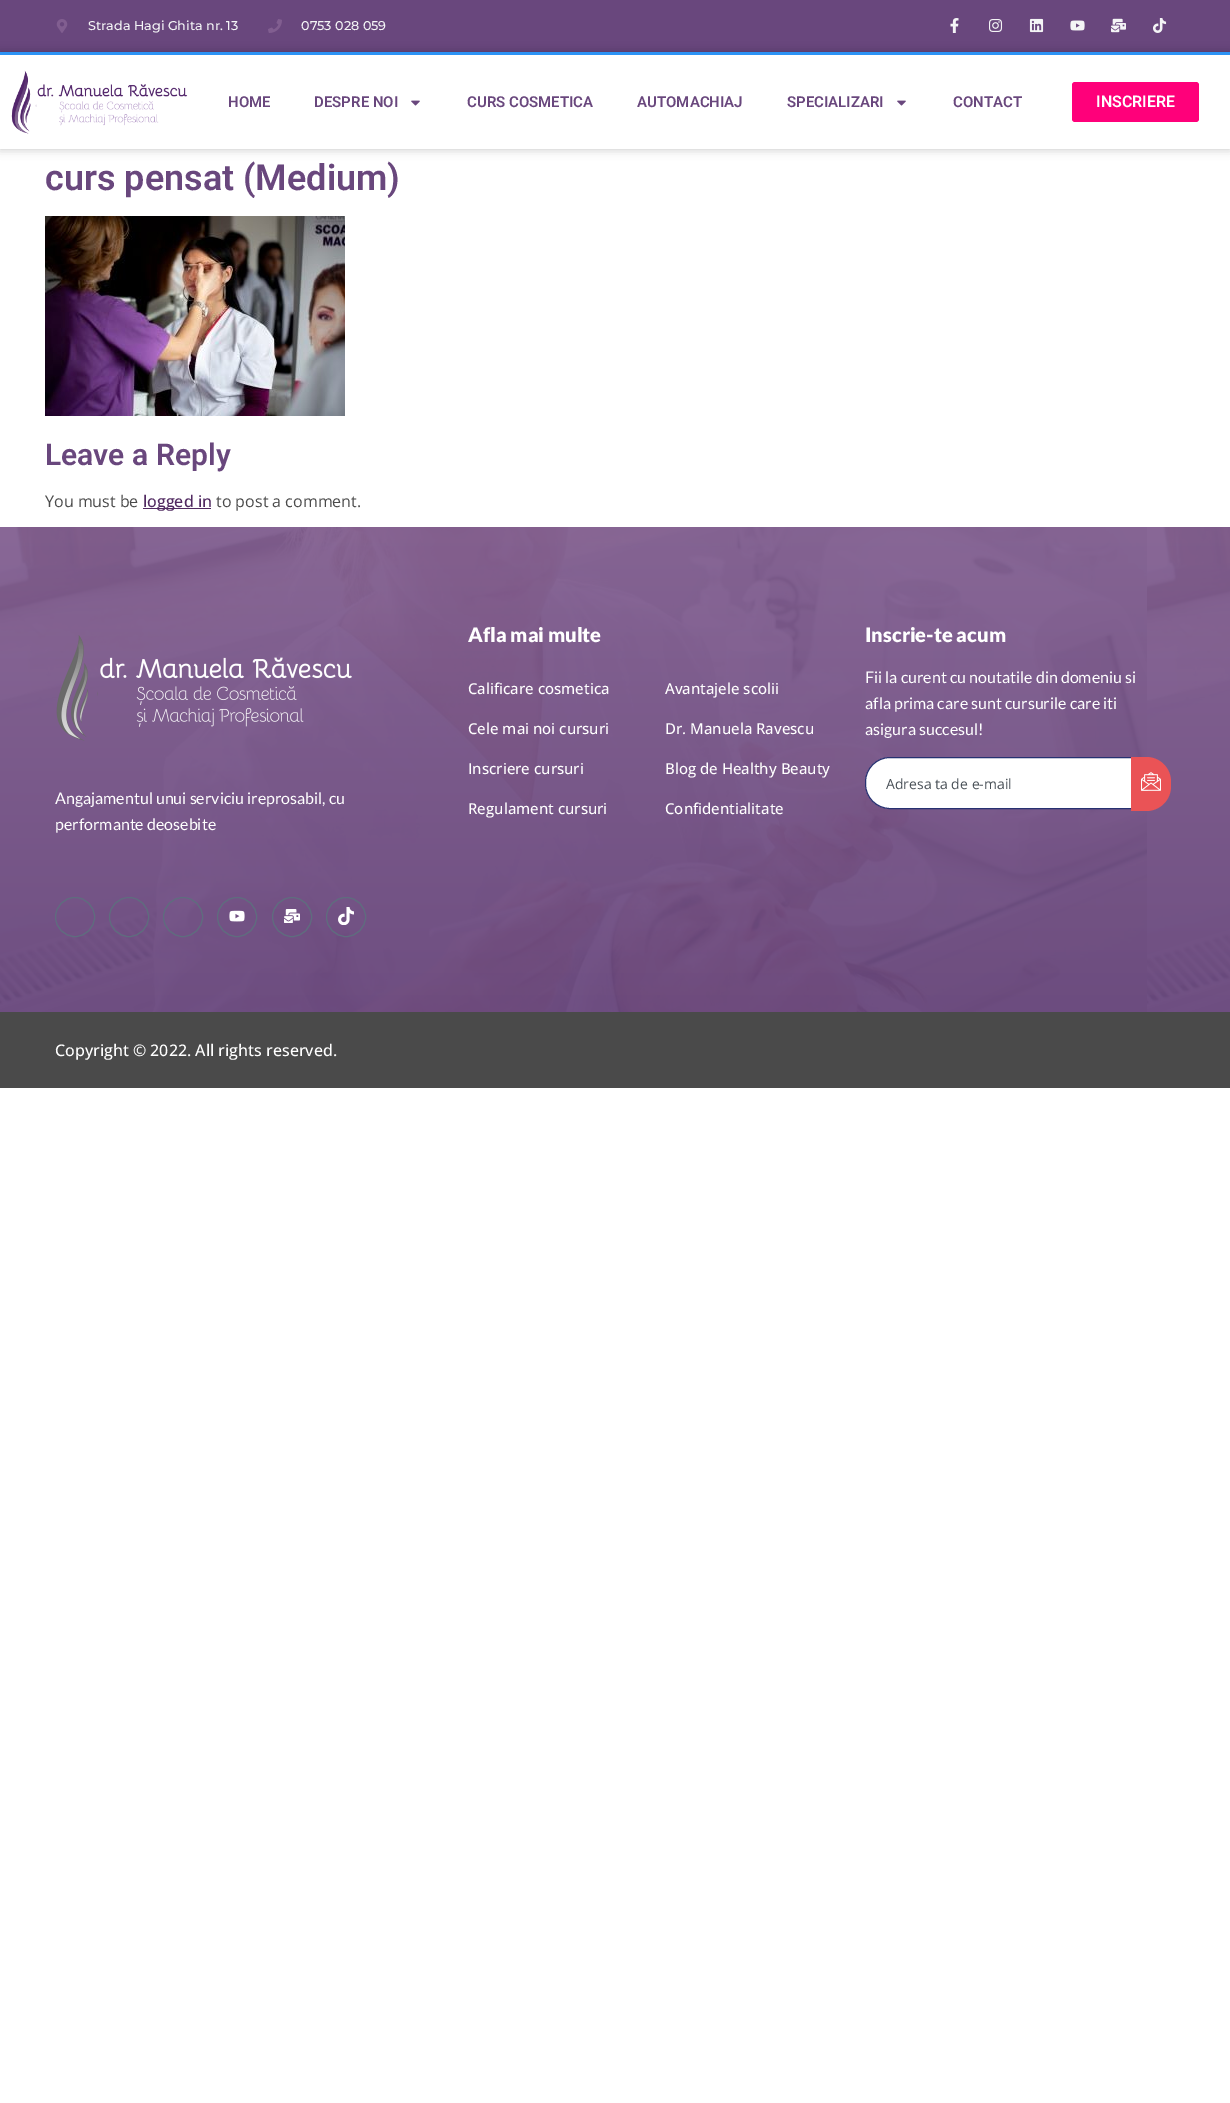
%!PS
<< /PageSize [1230 2103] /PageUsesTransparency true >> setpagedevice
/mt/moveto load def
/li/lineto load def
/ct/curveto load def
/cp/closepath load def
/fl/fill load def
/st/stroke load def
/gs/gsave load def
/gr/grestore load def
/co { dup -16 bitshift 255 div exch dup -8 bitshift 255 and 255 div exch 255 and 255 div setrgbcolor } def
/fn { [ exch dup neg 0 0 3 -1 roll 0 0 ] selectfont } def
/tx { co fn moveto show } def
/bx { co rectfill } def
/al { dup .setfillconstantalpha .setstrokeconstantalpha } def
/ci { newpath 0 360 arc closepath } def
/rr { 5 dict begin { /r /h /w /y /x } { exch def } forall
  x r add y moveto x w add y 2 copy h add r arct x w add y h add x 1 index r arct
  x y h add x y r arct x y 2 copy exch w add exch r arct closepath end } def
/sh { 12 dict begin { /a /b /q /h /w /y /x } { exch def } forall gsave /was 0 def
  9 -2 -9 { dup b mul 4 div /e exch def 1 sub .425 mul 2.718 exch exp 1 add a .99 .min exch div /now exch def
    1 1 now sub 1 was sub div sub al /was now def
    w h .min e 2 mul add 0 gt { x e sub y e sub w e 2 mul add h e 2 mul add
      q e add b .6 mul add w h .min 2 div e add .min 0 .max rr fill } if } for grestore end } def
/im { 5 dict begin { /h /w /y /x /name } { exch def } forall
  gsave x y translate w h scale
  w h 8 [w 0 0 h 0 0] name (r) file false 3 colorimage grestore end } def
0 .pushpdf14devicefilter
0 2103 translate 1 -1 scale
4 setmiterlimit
0 0 1230 2103 16#FFFFFF bx
0 0 1230 52 16#69477D bx
(media/1.raw) 56 19 12 14 im
(media/2.raw) 268 19 14 14 im
(media/3.raw) 950 18 9 15 im
(media/4.raw) 989 19 14 13 im
(media/5.raw) 1029 18 15 15 im
(media/6.raw) 1070 20 15 11 im
(media/7.raw) 1111 18 15 15 im
(media/8.raw) 1153 18 14 15 im
gs
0 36 mt 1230 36 li 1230 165 li 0 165 li cp 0 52 mt 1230 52 li 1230 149 li 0 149 li cp eoclip newpath
16#000000 co
0 52 1230 97 0 5 .23 sh
gr
0 52 1230 3 16#2C93F5 bx
(media/9.raw) 11 70 177 64 im
(media/10.raw) 411 100 9 6 im
(media/10.raw) 897 100 9 6 im
16#FF007A co
1072 82 127 40 3 rr fl
(media/11.raw) 45 216 300 200 im
143 508 68 1 16#512A61 bx
(media/12.raw) 0 527 1230 485 im
16#FFFFFF co
890 757.5 mt 1132.5 757.5 li 1132.5 808.5 li 890 808.5 li 876.5 808.5 865.5 797.5 865.5 784 ct 865.5 782 li 865.5 768.5 876.5 757.5 890 757.5 ct cp gs fl gr
16#273171 co
st
16#EA5356 co
1131 757 mt 1146 757 li 1160 757 1171 768 1171 782 ct 1171 786 li 1171 800 1160 811 1146 811 ct 1131 811 li cp fl
(media/13.raw) 1141 772 20 19 im
(media/14.raw) 56 635 296 106 im
16#5E6D7E co
75 917 19.5 ci st
129 917 19.5 ci st
183 917 19.5 ci st
237 917 19.5 ci st
(media/15.raw) 229 910 16 12 im
292 917 19.5 ci st
(media/16.raw) 284 909 16 14 im
346 917 19.5 ci st
(media/17.raw) 338 907 16 18 im
0 1012 1230 76 16#4A4A4A bx
(Strada Hagi Ghita nr. 13) 88 30 /Montserrat-Medium 12.75 16#F4F5F6 tx
(0753 028 059) 301 30 /Montserrat-Medium 12.75 16#F4F5F6 tx
(HOME) 228 107 /Roboto-SemiBold 15 16#69477D tx
(DESPRE NOI) 314 107 /Roboto-SemiBold 15 16#69477D tx
(CURS COSMETICA) 467 107 /Roboto-SemiBold 15 16#69477D tx
(AUTOMACHIAJ) 637 107 /Roboto-SemiBold 15 16#69477D tx
(SPECIALIZARI) 787 107 /Roboto-SemiBold 15 16#69477D tx
(CONTACT) 953 107 /Roboto-SemiBold 15 16#69477D tx
(INSCRIERE) 1096 107 /Roboto-SemiBold 16 16#FFFFFF tx
(curs pensat \(Medium\)) 45 190 /Roboto-SemiBold 36 16#69477D tx
(Leave a Reply) 45 465 /Roboto-SemiBold 30 16#69477D tx
(You must be) 45 507 /OpenSans-Regular 16 16#4A4A4A tx
(logged in) 143 507 /OpenSans-Medium 16 16#512A61 tx
(to post a comment.) 216 507 /OpenSans-Regular 16 16#4A4A4A tx
(Afla mai multe) 468 642 /Lato-Black 20 16#FFFFFF tx
(Calificare cosmetica) 468 694 /OpenSans-Medium 15 16#FFFFFF tx
(Cele mai noi cursuri) 468 734 /OpenSans-Medium 15 16#FFFFFF tx
(Inscriere cursuri) 468 774 /OpenSans-Medium 15 16#FFFFFF tx
(Regulament cursuri) 468 814 /OpenSans-Medium 15 16#FFFFFF tx
(Avantajele scolii) 665 694 /OpenSans-Medium 15 16#FFFFFF tx
(Dr. Manuela Ravescu) 665 734 /OpenSans-Medium 15 16#FFFFFF tx
(Blog de Healthy Beauty) 665 774 /OpenSans-Medium 15 16#FFFFFF tx
(Confidentialitate) 665 814 /OpenSans-Medium 15 16#FFFFFF tx
(Inscrie-te acum) 865 642 /Lato-Black 20 16#FFFFFF tx
(Fii la curent cu noutatile din domeniu si) 865 683 /Lato-Regular 16 16#FFFFFF tx
(afla prima care sunt cursurile care iti) 865 709 /Lato-Regular 16 16#FFFFFF tx
(asigura succesul!) 865 735 /Lato-Regular 16 16#FFFFFF tx
(Adresa ta de e-mail) 886 789 /OpenSans-Regular 14 16#495057 tx
(Angajamentul unui serviciu ireprosabil, cu) 55 804 /Lato-Regular 16 16#FFFFFF tx
(performante deosebite) 55 830 /Lato-Regular 16 16#FFFFFF tx
(Copyright © 2022. All rights reserved.) 55 1056 /OpenSans-Medium 16 16#FFFFFF tx
.poppdf14devicefilter showpage
